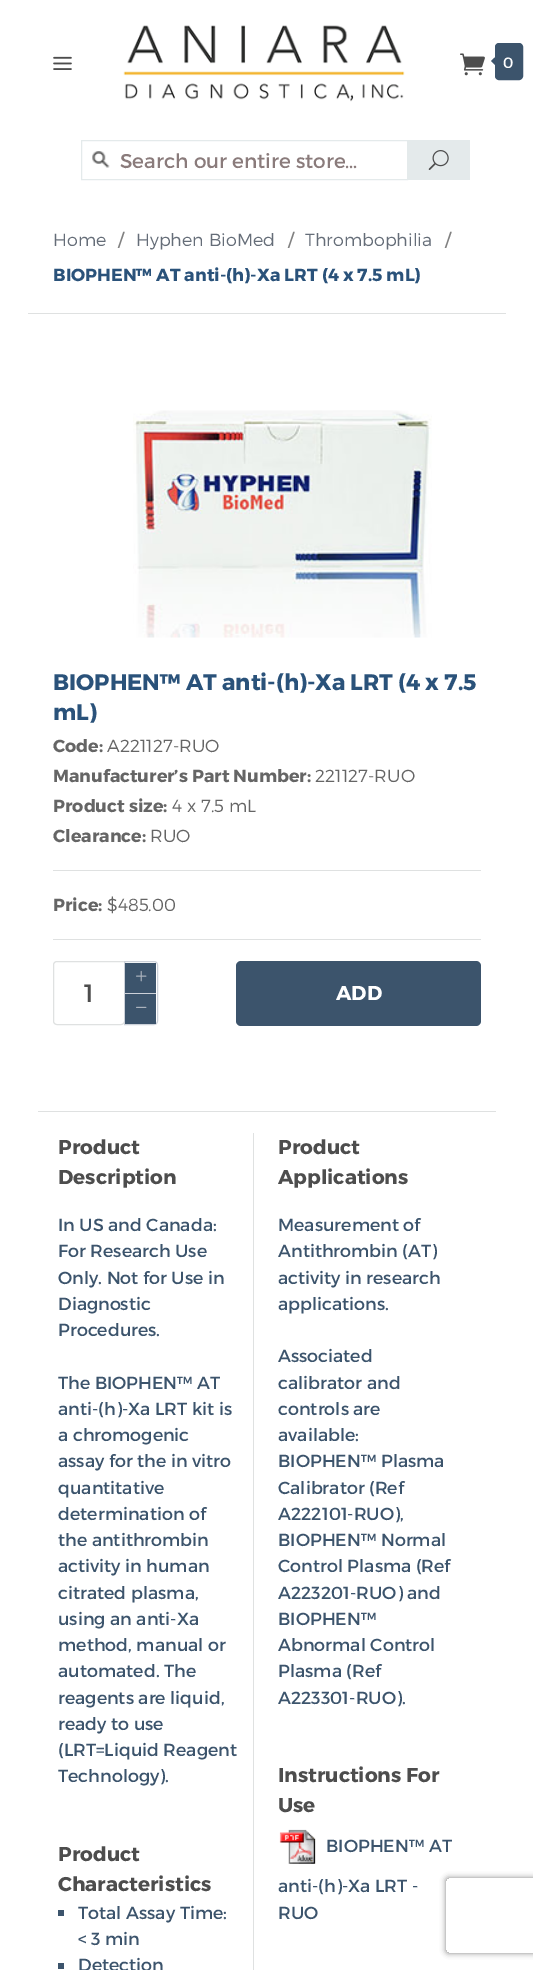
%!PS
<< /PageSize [533 1970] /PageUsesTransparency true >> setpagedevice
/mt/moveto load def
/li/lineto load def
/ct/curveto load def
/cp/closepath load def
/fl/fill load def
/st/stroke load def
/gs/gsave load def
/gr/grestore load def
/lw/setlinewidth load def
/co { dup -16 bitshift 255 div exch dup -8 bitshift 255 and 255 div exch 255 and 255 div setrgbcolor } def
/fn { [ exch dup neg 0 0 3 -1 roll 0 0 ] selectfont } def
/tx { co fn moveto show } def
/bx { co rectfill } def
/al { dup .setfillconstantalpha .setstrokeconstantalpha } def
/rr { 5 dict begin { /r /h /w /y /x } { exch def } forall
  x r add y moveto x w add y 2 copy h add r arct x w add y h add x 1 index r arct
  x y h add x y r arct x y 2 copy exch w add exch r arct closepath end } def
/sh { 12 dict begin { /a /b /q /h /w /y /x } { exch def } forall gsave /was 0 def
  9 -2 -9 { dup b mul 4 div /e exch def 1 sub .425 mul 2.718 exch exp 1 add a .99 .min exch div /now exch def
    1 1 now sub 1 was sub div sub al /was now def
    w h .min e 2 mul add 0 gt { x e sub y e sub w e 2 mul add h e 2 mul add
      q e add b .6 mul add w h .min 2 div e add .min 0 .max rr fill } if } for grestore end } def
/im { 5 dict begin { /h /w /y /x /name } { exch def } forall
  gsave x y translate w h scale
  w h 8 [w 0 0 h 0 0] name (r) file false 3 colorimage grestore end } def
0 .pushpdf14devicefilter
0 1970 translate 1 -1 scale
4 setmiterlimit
0 0 533 1970 16#FFFFFF bx
(media/1.raw) 53 56 19 14 im
(media/2.raw) 123 25 282 77 im
(media/3.raw) 460 53 25 23 im
16#3C546C co
496.5 44.5 25 34 2.5 rr gs fl gr
3 lw
st
497.5 55 mt 497.5 67.5 li 491 61 li cp fl
(media/4.raw) 92 151 18 17 im
16#E4EAEB co
1 lw
81.5 140.5 326 39 rectstroke
408 140 62 40 16#E4EAEB bx
(media/5.raw) 428 150 21 20 im
28 313 478 1 16#DFE1E1 bx
(media/6.raw) 133 410 299 228 im
53 870 428 1 16#DFE1E1 bx
53 939 428 1 16#DFE1E1 bx
57 961.5 mt 124.5 961.5 li 124.5 1021 li 124.5 1023 123 1024.5 121 1024.5 ct 57 1024.5 li 55 1024.5 53.5 1023 53.5 1021 ct 53.5 965 li 53.5 963 55 961.5 57 961.5 ct cp st
16#CCD1D9 co
124.5 961.5 mt 154 961.5 li 156 961.5 157.5 963 157.5 965 ct 157.5 1021 li 157.5 1023 156 1024.5 154 1024.5 ct 124.5 1024.5 li cp st
125 963 31 30 16#3C546C bx
125 993 31 1 16#CCD1D9 bx
(media/7.raw) 136 970 11 12 im
125 994 31 30 16#3C546C bx
(media/8.raw) 136 1006 11 2 im
236 961 245 65 5 rr fl
38 1111 458 1 16#DFE1E1 bx
58 1910 6 6 16#3C546C bx
58 1963 6 6 16#3C546C bx
253 1133 1 837 16#DFE1E1 bx
(media/9.raw) 279 1829 37 35 im
gs
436 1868 mt 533 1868 li 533 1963 li 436 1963 li cp 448.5 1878 mt 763.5 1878 li 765 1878 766 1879 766 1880.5 ct 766 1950.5 li 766 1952 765 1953 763.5 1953 ct 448.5 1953 li 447 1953 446 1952 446 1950.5 ct 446 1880.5 li 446 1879 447 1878 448.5 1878 ct cp eoclip newpath
16#808080 co
446 1878 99 75 2.5 3 1 sh
gr
(0) 503 68 /Montserrat-Regular 15 16#FFFFFF tx
(Search our entire store…) 120 168 /Montserrat-Regular 20 16#8A7B7B tx
(Home) 53 246 /Montserrat-Light 17.5 16#656D78 tx
(/) 118 246 /Montserrat-Regular 17.5 16#818181 tx
(Hyphen BioMed) 136 246 /Montserrat-Light 17.5 16#656D78 tx
(/) 288 246 /Montserrat-Regular 17.5 16#818181 tx
(Thrombophilia) 305 246 /Montserrat-Light 17.5 16#656D78 tx
(/) 445 246 /Montserrat-Regular 17.5 16#818181 tx
(BIOPHEN™ AT anti-\(h\)-Xa LRT \(4 x 7.5 mL\)) 53 281 /Montserrat-Bold 17.5 16#2A527A tx
(BIOPHEN™ AT anti-\(h\)-Xa LRT \(4 x 7.5) 53 690 /Montserrat-Bold 22.5 16#2A527A tx
(mL\)) 53 720 /Montserrat-Bold 22.5 16#2A527A tx
(Code:) 53 752 /Montserrat-Bold 17.5 16#656565 tx
(A221127-RUO) 107 752 /Montserrat-Light 17.5 16#656565 tx
(Manufacturer’s Part Number:) 53 782 /Montserrat-Bold 17.5 16#656565 tx
(221127-RUO) 315 782 /Montserrat-Light 17.5 16#656565 tx
(Product size:) 53 812 /Montserrat-Bold 17.5 16#656565 tx
(4 x 7.5 mL) 172 812 /Montserrat-Light 17.5 16#656565 tx
(Clearance:) 53 842 /Montserrat-Bold 17.5 16#656565 tx
(RUO) 150 842 /Montserrat-Light 17.5 16#656565 tx
(Price:) 53 911 /Montserrat-Bold 17.5 16#656565 tx
($485.00) 107 911 /Montserrat-Light 17.5 16#656565 tx
(1) 84 1002 /Montserrat-Regular 25 16#4D4D4D tx
(ADD) 336 1000 /Montserrat-Bold 20 16#FFFFFF tx
(Product) 58 1154 /Montserrat-Bold 20 16#4D4D4D tx
(Description) 58 1184 /Montserrat-Bold 20 16#4D4D4D tx
(In US and Canada:) 58 1231 /Montserrat-Regular 17.5 16#3C546C tx
(For Research Use) 58 1257 /Montserrat-Regular 17.5 16#3C546C tx
(Only. Not for Use in) 58 1284 /Montserrat-Regular 17.5 16#3C546C tx
(Diagnostic) 58 1310 /Montserrat-Regular 17.5 16#3C546C tx
(Procedures.) 58 1336 /Montserrat-Regular 17.5 16#3C546C tx
(The BIOPHEN™ AT) 58 1389 /Montserrat-Regular 17.5 16#3C546C tx
(anti-\(h\)-Xa LRT kit is) 58 1415 /Montserrat-Regular 17.5 16#3C546C tx
(a chromogenic) 58 1441 /Montserrat-Regular 17.5 16#3C546C tx
(assay for the in vitro) 58 1467 /Montserrat-Regular 17.5 16#3C546C tx
(quantitative) 58 1494 /Montserrat-Regular 17.5 16#3C546C tx
(determination of) 58 1520 /Montserrat-Regular 17.5 16#3C546C tx
(the antithrombin) 58 1546 /Montserrat-Regular 17.5 16#3C546C tx
(activity in human) 58 1572 /Montserrat-Regular 17.5 16#3C546C tx
(citrated plasma,) 58 1599 /Montserrat-Regular 17.5 16#3C546C tx
(using an anti-Xa) 58 1625 /Montserrat-Regular 17.5 16#3C546C tx
(method, manual or) 58 1651 /Montserrat-Regular 17.5 16#3C546C tx
(automated. The) 58 1677 /Montserrat-Regular 17.5 16#3C546C tx
(reagents are liquid,) 58 1704 /Montserrat-Regular 17.5 16#3C546C tx
(ready to use) 58 1730 /Montserrat-Regular 17.5 16#3C546C tx
(\(LRT=Liquid Reagent) 58 1756 /Montserrat-Regular 17.5 16#3C546C tx
(Technology\).) 58 1782 /Montserrat-Regular 17.5 16#3C546C tx
(Product) 58 1861 /Montserrat-Bold 20 16#4D4D4D tx
(Characteristics) 58 1891 /Montserrat-Bold 20 16#4D4D4D tx
(Total Assay Time:) 78 1919 /Montserrat-Regular 17.5 16#3C546C tx
(< 3 min) 78 1945 /Montserrat-Regular 17.5 16#3C546C tx
(Detection) 78 1971 /Montserrat-Regular 17.5 16#3C546C tx
(Product) 278 1154 /Montserrat-Bold 20 16#4D4D4D tx
(Applications) 278 1184 /Montserrat-Bold 20 16#4D4D4D tx
(Measurement of) 278 1231 /Montserrat-Regular 17.5 16#3C546C tx
(Antithrombin \(AT\)) 278 1257 /Montserrat-Regular 17.5 16#3C546C tx
(activity in research) 278 1284 /Montserrat-Regular 17.5 16#3C546C tx
(applications.) 278 1310 /Montserrat-Regular 17.5 16#3C546C tx
(Associated) 278 1362 /Montserrat-Regular 17.5 16#3C546C tx
(calibrator and) 278 1389 /Montserrat-Regular 17.5 16#3C546C tx
(controls are) 278 1415 /Montserrat-Regular 17.5 16#3C546C tx
(available:) 278 1441 /Montserrat-Regular 17.5 16#3C546C tx
(BIOPHEN™ Plasma) 278 1467 /Montserrat-Regular 17.5 16#3C546C tx
(Calibrator \(Ref) 278 1494 /Montserrat-Regular 17.5 16#3C546C tx
(A222101-RUO\),) 278 1520 /Montserrat-Regular 17.5 16#3C546C tx
(BIOPHEN™ Normal) 278 1546 /Montserrat-Regular 17.5 16#3C546C tx
(Control Plasma \(Ref) 278 1572 /Montserrat-Regular 17.5 16#3C546C tx
(A223201-RUO\) and) 278 1599 /Montserrat-Regular 17.5 16#3C546C tx
(BIOPHEN™) 278 1625 /Montserrat-Regular 17.5 16#3C546C tx
(Abnormal Control) 278 1651 /Montserrat-Regular 17.5 16#3C546C tx
(Plasma \(Ref) 278 1677 /Montserrat-Regular 17.5 16#3C546C tx
(A223301-RUO\).) 278 1704 /Montserrat-Regular 17.5 16#3C546C tx
(Instructions For) 278 1782 /Montserrat-Bold 20 16#4D4D4D tx
(Use) 278 1812 /Montserrat-Bold 20 16#4D4D4D tx
(BIOPHEN™ AT) 326 1852 /Montserrat-Regular 17.5 16#3C546C tx
(anti-\(h\)-Xa LRT -) 278 1892 /Montserrat-Regular 17.5 16#3C546C tx
(RUO) 278 1919 /Montserrat-Regular 17.5 16#3C546C tx
.poppdf14devicefilter showpage
